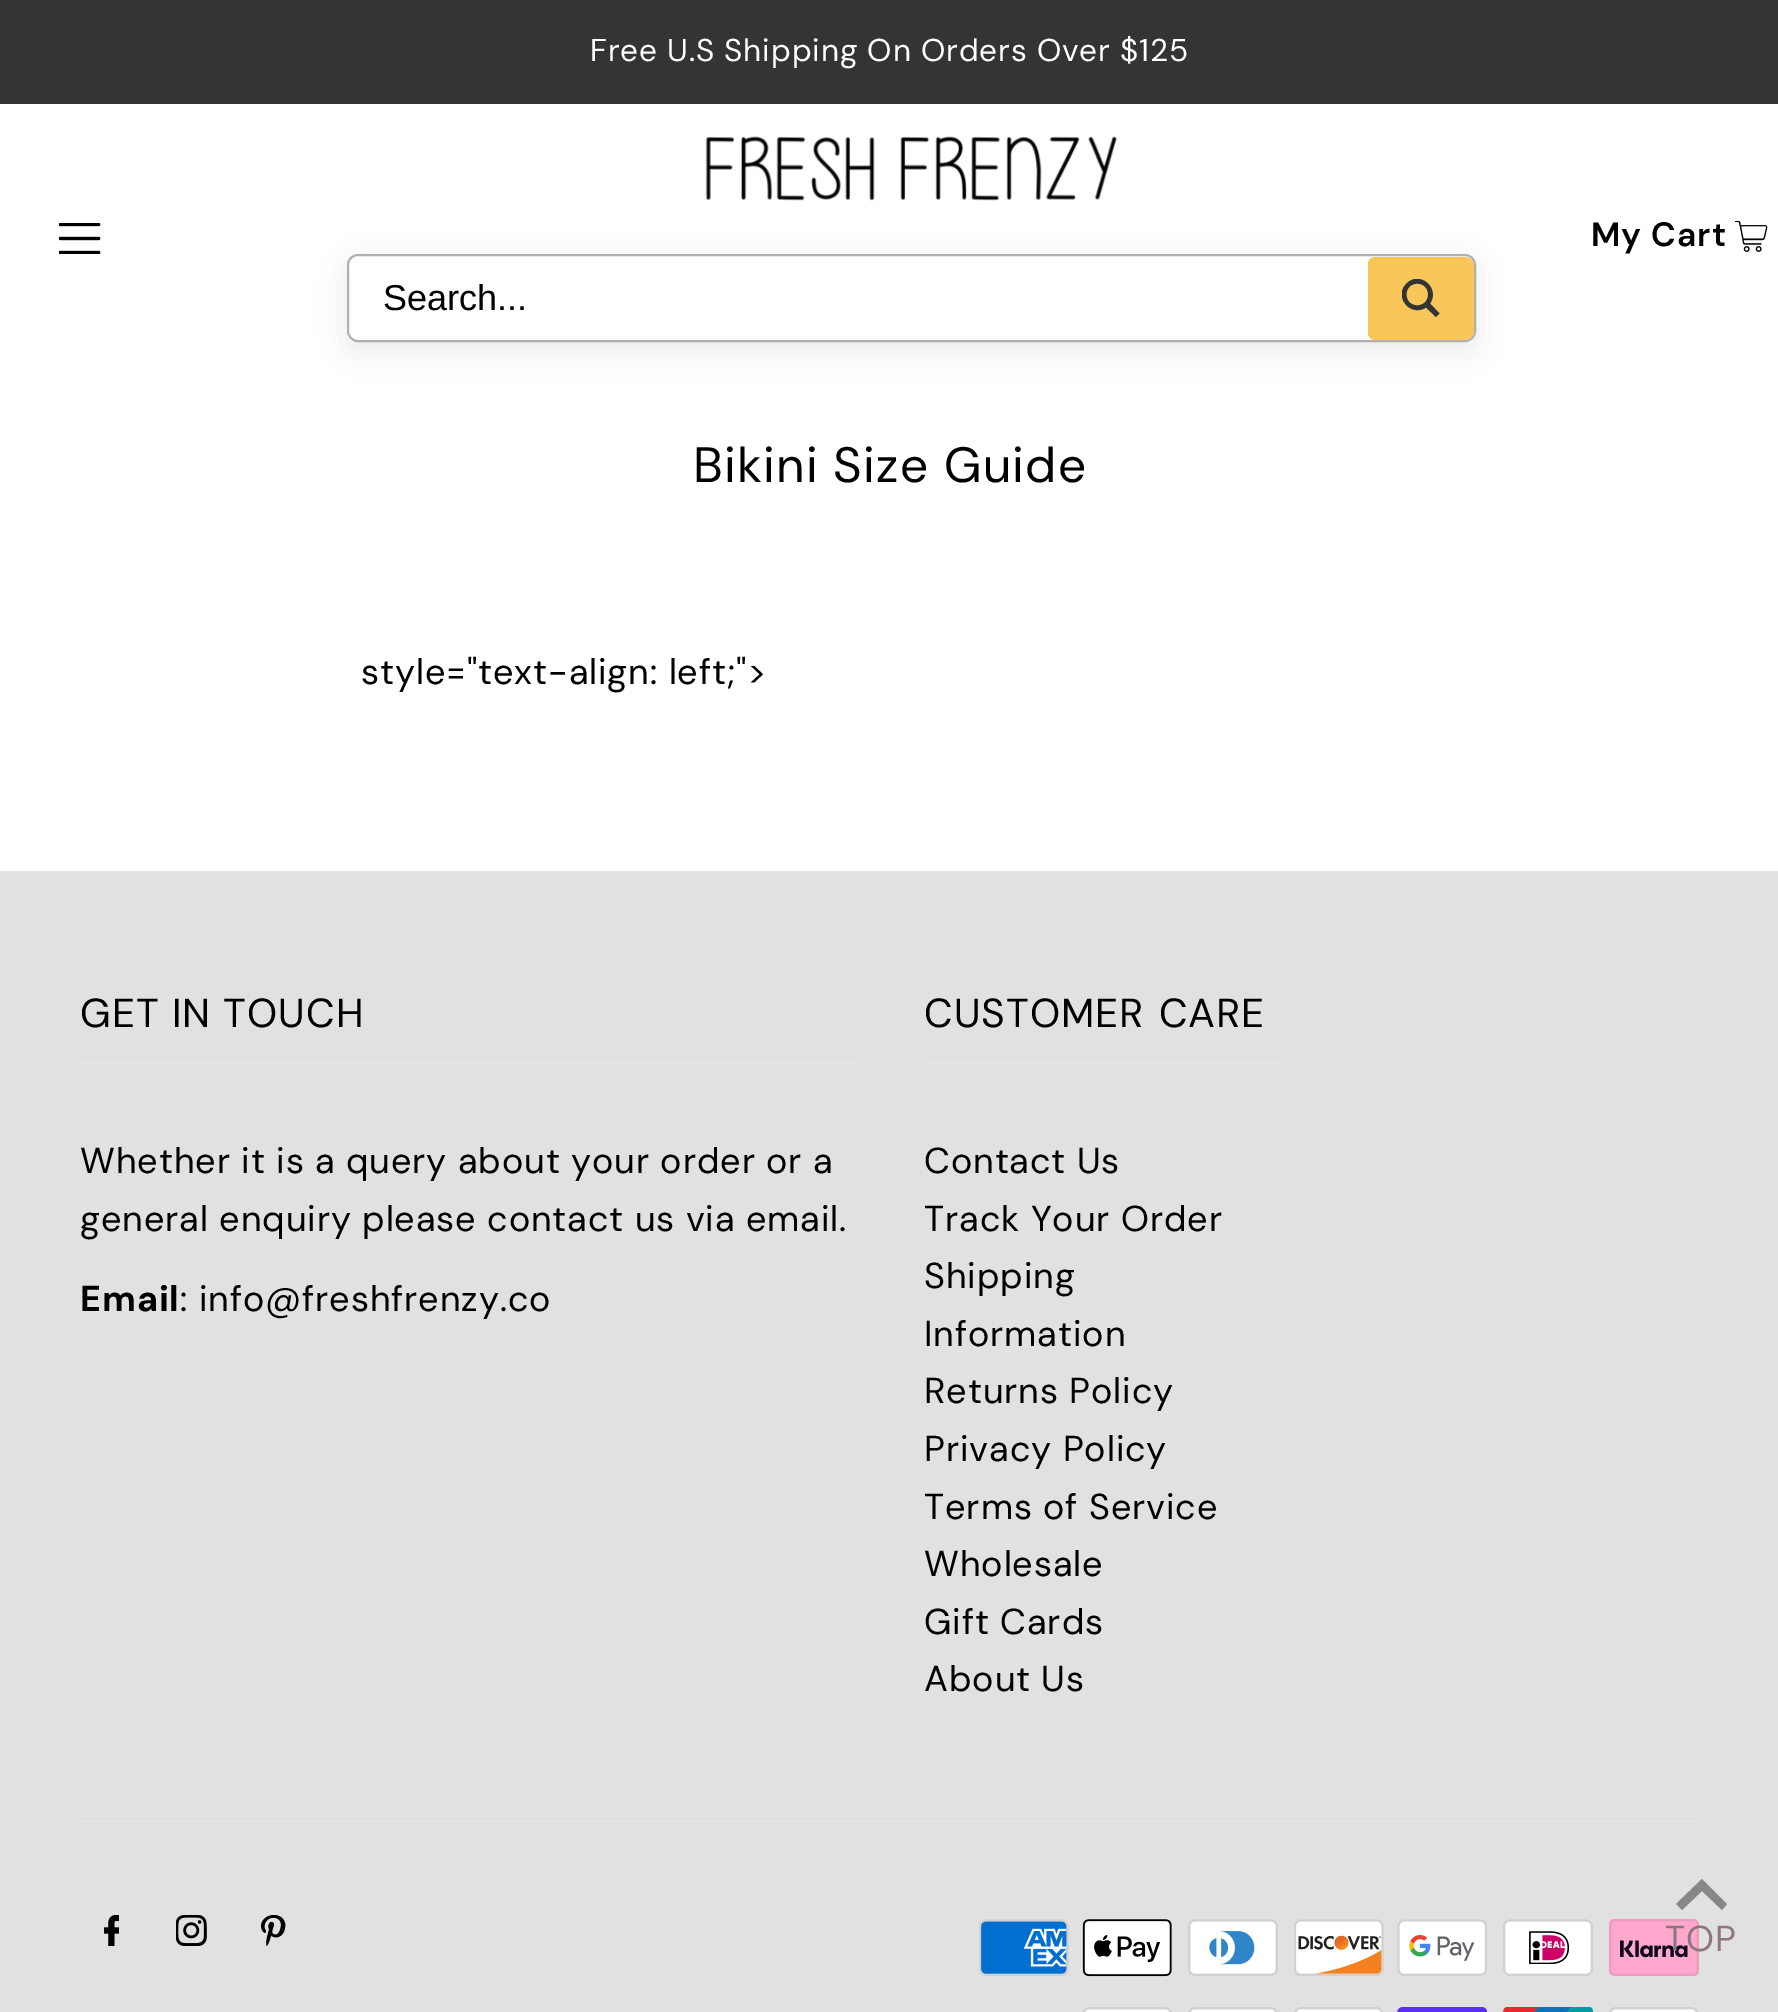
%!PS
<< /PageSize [1778 2012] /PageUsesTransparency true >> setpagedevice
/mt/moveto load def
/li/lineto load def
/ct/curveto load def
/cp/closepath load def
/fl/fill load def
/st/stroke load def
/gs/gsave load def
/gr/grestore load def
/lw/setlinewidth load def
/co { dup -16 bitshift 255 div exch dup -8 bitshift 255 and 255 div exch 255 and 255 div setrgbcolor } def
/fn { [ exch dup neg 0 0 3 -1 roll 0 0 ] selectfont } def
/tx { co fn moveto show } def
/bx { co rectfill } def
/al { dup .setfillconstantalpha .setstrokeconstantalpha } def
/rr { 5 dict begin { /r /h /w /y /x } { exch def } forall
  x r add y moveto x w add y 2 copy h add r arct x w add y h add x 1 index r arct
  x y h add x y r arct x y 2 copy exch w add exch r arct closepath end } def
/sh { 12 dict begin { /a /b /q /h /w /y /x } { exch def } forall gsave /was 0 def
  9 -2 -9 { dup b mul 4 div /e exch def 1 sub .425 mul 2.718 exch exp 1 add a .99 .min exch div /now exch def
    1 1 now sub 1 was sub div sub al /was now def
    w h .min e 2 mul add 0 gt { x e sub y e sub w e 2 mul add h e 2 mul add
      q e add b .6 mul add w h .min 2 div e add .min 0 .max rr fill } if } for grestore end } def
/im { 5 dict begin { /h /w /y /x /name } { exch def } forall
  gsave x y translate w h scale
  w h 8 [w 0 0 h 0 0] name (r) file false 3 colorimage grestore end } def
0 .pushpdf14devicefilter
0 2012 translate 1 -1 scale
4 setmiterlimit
0 0 1778 2012 16#FFFFFF bx
0 0 1778 104 16#343434 bx
(media/1.raw) 705 136 412 65 im
(media/2.raw) 59 223 42 31 im
(media/3.raw) 1735 221 33 31 im
16#000000 co
347 263 1129 88 11 13.5 .08 sh
16#FFFFFF co
348 255 1127 86 10 rr gs fl gr
16#B0B0B0 co
2 lw
st
16#F9C659 co
1375 257 mt 1465 257 li 1470 257 1474 261 1474 266 ct 1474 331 li 1474 336 1470 340 1465 340 ct 1375 340 li 1371 340 1368 337 1368 333 ct 1368 264 li 1368 260 1371 257 1375 257 ct cp fl
gs
1402 279 38 38 rectclip
16#343434 co
1439.5 313.5 mt 1430 303.5 li 1440.5 288.5 1420 270 1406.5 283.5 ct 1393 297 1411 317.5 1426 307.5 ct 1436 317 li cp 1406.5 294.5 mt 1406.5 280 1428 280 1428 294.5 ct 1428 309 1406.5 309 1406.5 294.5 ct cp fl
gr
0 873 1778 1139 16#E1E1E1 bx
0 871 1778 2 16#E5E5E5 bx
81 1062 776 2 16#E5E5E5 bx
925 1062 353 2 16#E5E5E5 bx
81 1820 1620 2 16#E5E5E5 bx
(media/4.raw) 104 1915 15 31 im
(media/5.raw) 176 1915 31 31 im
(media/6.raw) 261 1915 25 31 im
(media/7.raw) 979 1919 90 57 im
(media/8.raw) 1082 1919 90 58 im
(media/9.raw) 1188 1919 90 57 im
(media/10.raw) 1294 1919 90 57 im
(media/11.raw) 1397 1919 90 57 im
(media/12.raw) 1503 1919 90 57 im
(media/13.raw) 1609 1919 90 57 im
(media/14.raw) 1083 2007 89 5 im
(media/15.raw) 1188 2007 90 5 im
(media/16.raw) 1294 2007 89 5 im
(media/17.raw) 1397 2007 90 5 im
(media/18.raw) 1503 2007 90 5 im
(media/16.raw) 1609 2007 89 5 im
16#878787 co
1702 1879 mt 1676 1904 li 1682 1910 li 1702 1891 li 1722 1910 li 1727 1904 li cp fl
/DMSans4-Regular 31.5 fn
16#FFFFFF co
590 61 mt .9 0 (Free U.S Shipping On Orders Over $125) ashow
/DMSans-SemiBold 33.75 fn
16#000000 co
1591 246 mt .9 0 (My Cart) ashow
(Search...) 383 310 /LiberationSans-Regular 36 16#000000 tx
/DMSans-Regular 49.5 fn
693 482 mt 1.25 0 (Bikini Size Guide) ashow
/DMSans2-Regular 36 fn
361 684 mt .9 0 (style="text-align: left;">) ashow
/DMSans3-Regular 40.5 fn
80 1027 mt 1 0 (GET IN TOUCH) ashow
/DMSans2-Regular 36 fn
80 1173 mt .9 0 (Whether it is a query about your order or a) ashow
80 1231 mt .9 0 (general enquiry please contact us via email.) ashow
/DMSans-Bold 36 fn
80 1311 mt .9 0 (Email) ashow
/DMSans2-Regular 36 fn
180 1311 mt .9 0 (: info@freshfrenzy.co) ashow
/DMSans3-Regular 40.5 fn
924 1027 mt 2 0 32 1 0 (CUSTOMER CARE) awidthshow
/DMSans2-Regular 36 fn
924 1173 mt .9 0 (Contact Us) ashow
924 1231 mt .9 0 (Track Your Order) ashow
924 1288 mt .9 0 (Shipping) ashow
924 1346 mt .9 0 (Information) ashow
924 1403 mt .9 0 (Returns Policy) ashow
924 1461 mt .9 0 (Privacy Policy) ashow
924 1519 mt .9 0 (Terms of Service) ashow
924 1576 mt .9 0 (Wholesale) ashow
924 1634 mt .9 0 (Gift Cards) ashow
924 1691 mt .9 0 (About Us) ashow
16#8D7680 co
1665 1951 mt .9 0 (TOP) ashow
.poppdf14devicefilter showpage
